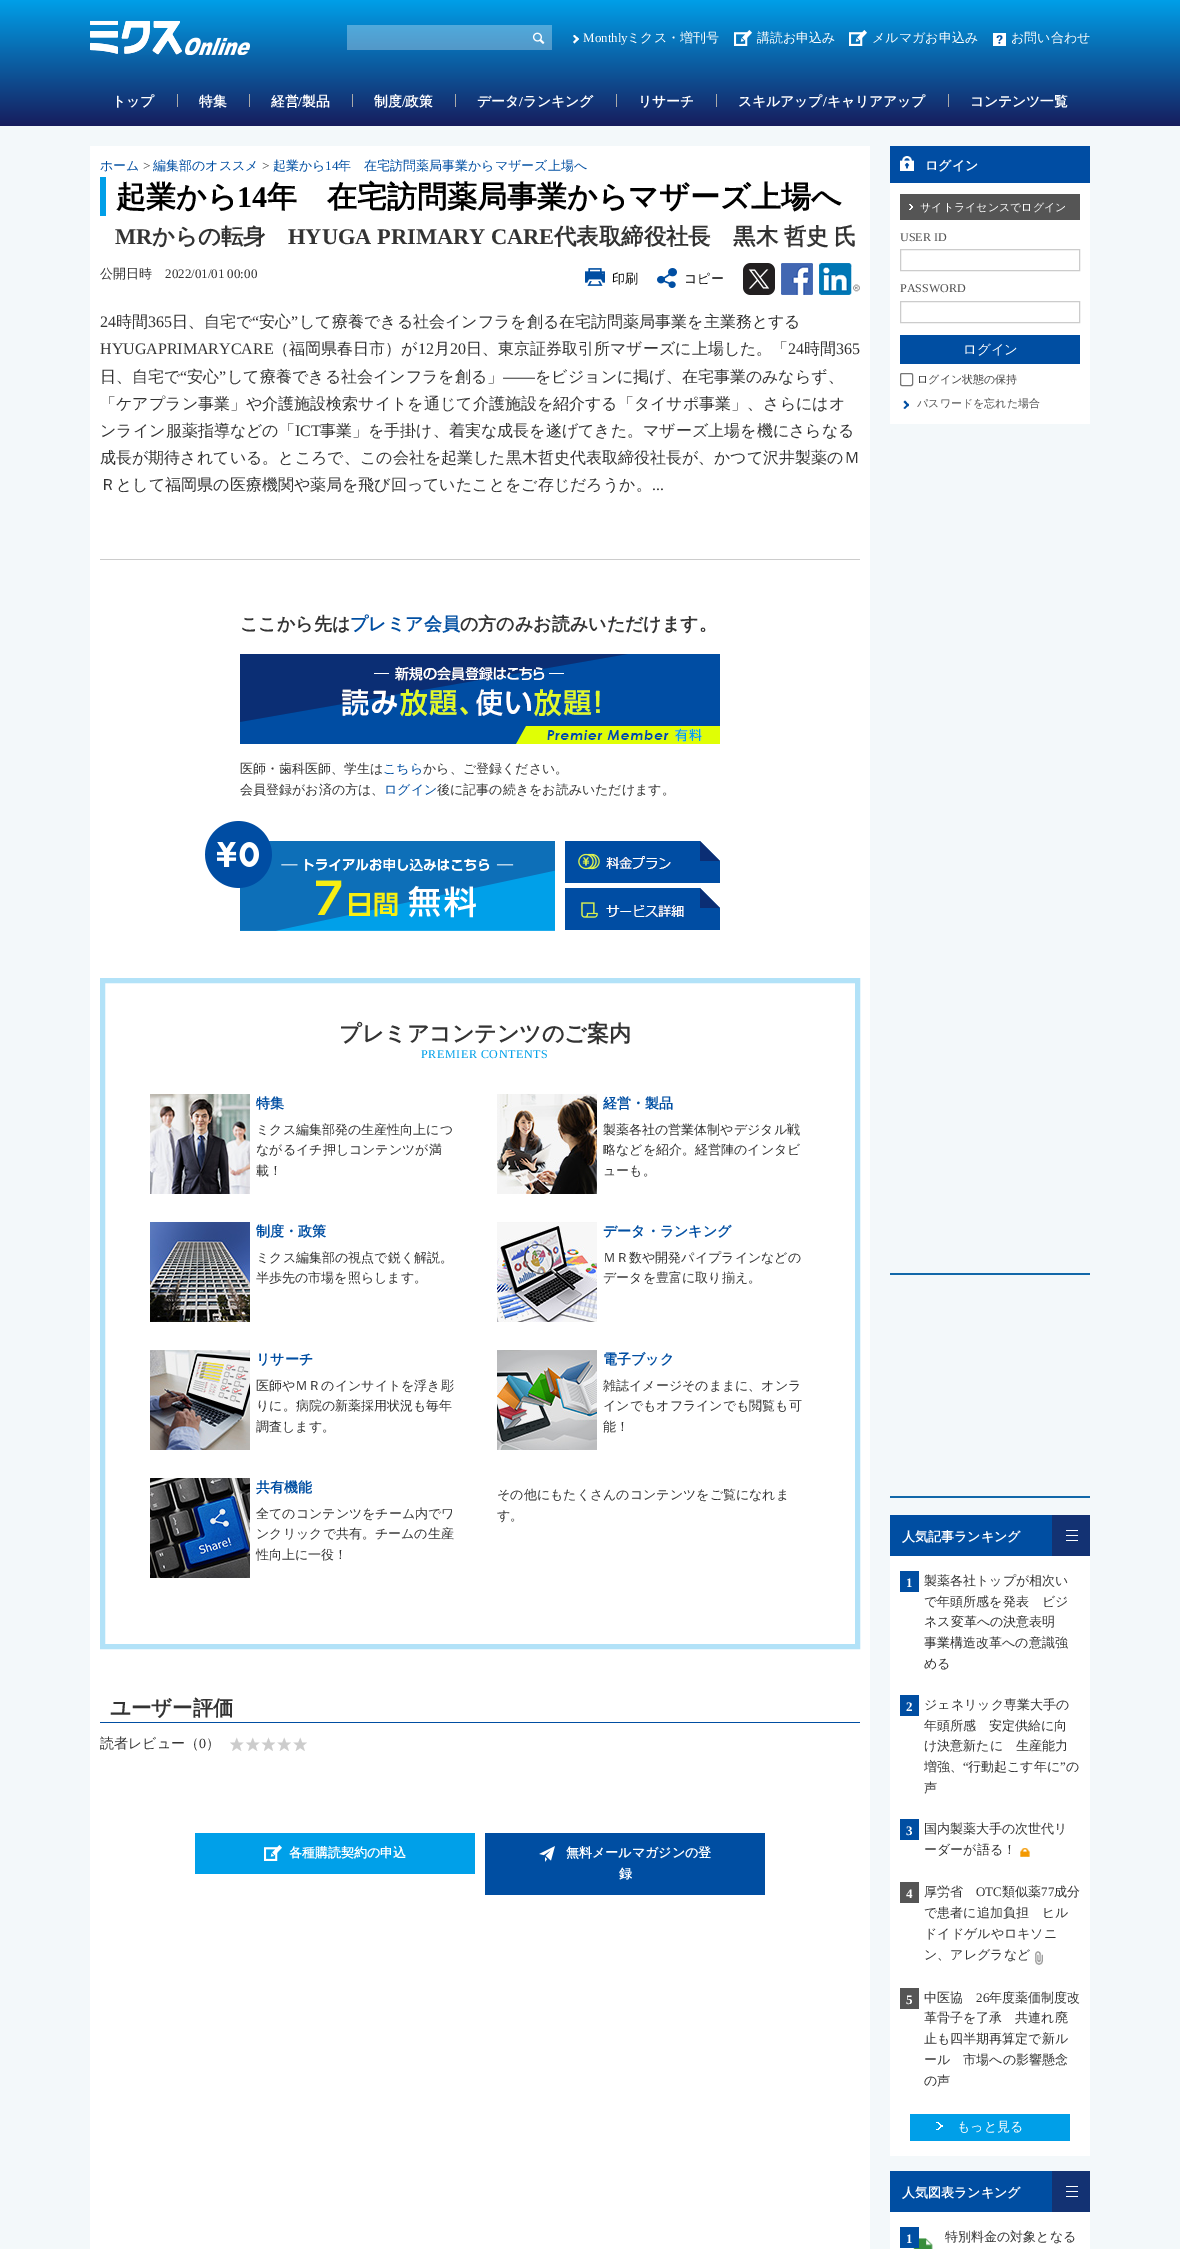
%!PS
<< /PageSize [1180 2249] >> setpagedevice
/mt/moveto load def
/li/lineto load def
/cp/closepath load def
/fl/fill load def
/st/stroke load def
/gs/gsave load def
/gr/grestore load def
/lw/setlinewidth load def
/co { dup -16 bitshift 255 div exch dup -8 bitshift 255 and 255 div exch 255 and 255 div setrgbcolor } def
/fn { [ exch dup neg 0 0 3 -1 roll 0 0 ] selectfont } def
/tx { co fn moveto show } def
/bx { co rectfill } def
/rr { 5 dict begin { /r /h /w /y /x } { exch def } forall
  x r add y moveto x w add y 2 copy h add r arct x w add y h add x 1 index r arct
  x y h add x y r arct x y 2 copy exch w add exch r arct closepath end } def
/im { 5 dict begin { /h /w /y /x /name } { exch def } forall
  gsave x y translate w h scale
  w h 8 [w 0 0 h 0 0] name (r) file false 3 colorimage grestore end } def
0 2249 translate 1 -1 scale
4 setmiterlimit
0 0 1180 2249 16#F3F8FA bx
gs 0 0 mt 1180 0 li 1180 126 li 0 126 li cp clip newpath
<< /ShadingType 2 /ColorSpace /DeviceRGB /Coords [590 0 590 126] /Extend [true true] /Function << /FunctionType 2 /Domain [0 1] /C0 [0 .624 .91] /C1 [.09 .114 .365] /N 1 >> >> shfill gr
gs 347 25 mt 552 25 li 552 50 li 347 50 li cp clip newpath
<< /ShadingType 2 /ColorSpace /DeviceRGB /Coords [590 0 590 126] /Extend [true true] /Function << /FunctionType 2 /Domain [0 1] /C0 [.302 .737 .937] /C1 [.365 .38 .557] /N 1 >> >> shfill gr
(media/1.raw) 90 20 160 35 im
(media/2.raw) 532 32 13 12 im
16#FFFFFF co
574.5 35 mt 579 39 li 577.5 40.5 li 573 36 li cp fl
577.5 37.5 mt 579 39 li 574.5 43.5 li 573 42 li cp fl
(media/3.raw) 734 30 18 16 im
(media/3.raw) 849 30 18 16 im
(media/4.raw) 993 33 13 13 im
177 94 1 13 16#AAAAAA bx
249 94 1 13 16#AAAAAA bx
352 94 1 13 16#AAAAAA bx
455 94 1 13 16#AAAAAA bx
616 94 1 13 16#AAAAAA bx
716 94 1 13 16#AAAAAA bx
948 94 1 13 16#AAAAAA bx
90 146 780 2103 16#FFFFFF bx
100 177 6 39 16#009FE8 bx
(media/5.raw) 585 268 20 18 im
(media/6.raw) 657 268 20 20 im
(media/7.raw) 743 263 32 32 im
(media/8.raw) 781 263 32 32 im
(media/9.raw) 819 263 41 32 im
100 559 760 1 16#CCCCCC bx
(media/10.raw) 240 654 480 90 im
(media/12.raw) 240 841 315 90 im
(media/11.raw) 205 821 67 67 im
(media/13.raw) 565 841 155 42 im
(media/14.raw) 565 888 155 42 im
16#B2E2F8 co
5 lw
102.5 980.5 755 666 rectstroke
(media/15.raw) 150 1094 100 100 im
(media/16.raw) 497 1094 100 100 im
(media/17.raw) 150 1222 100 100 im
(media/18.raw) 497 1222 100 100 im
(media/19.raw) 150 1350 100 100 im
(media/20.raw) 497 1350 100 100 im
(media/21.raw) 150 1478 100 100 im
100 1722 760 1 16#004EA2 bx
(media/22.raw) 230 1737 77 14 im
195 1833 280 41 16#00A0E9 bx
(media/23.raw) 264 1845 18 16 im
485 1833 280 62 16#004EA2 bx
(media/24.raw) 539 1846 16 16 im
890 183 200 241 16#FFFFFF bx
890 146 200 37 16#004DA3 bx
(media/25.raw) 900 156 14 15 im
900 194 180 26 16#555555 bx
gs 908 207 mt 914 207 li 914 210 li 908 210 li cp clip newpath
<< /ShadingType 2 /ColorSpace /DeviceRGB /Coords [909 206 913 211] /Extend [true true] /Function << /FunctionType 3 /Domain [0 1] /Functions [<< /FunctionType 2 /Domain [0 1] /C0 [.333 .333 .333] /C1 [.333 .333 .333] /N 1 >> << /FunctionType 2 /Domain [0 1] /C0 [1 1 1] /C1 [1 1 1] /N 1 >> << /FunctionType 2 /Domain [0 1] /C0 [.333 .333 .333] /C1 [.333 .333 .333] /N 1 >>] /Bounds [.4 .6] /Encode [0 1 0 1 0 1] >> >> shfill gr
gs 908 204 mt 914 204 li 914 207 li 908 207 li cp clip newpath
<< /ShadingType 2 /ColorSpace /DeviceRGB /Coords [909 208 913 203] /Extend [true true] /Function << /FunctionType 3 /Domain [0 1] /Functions [<< /FunctionType 2 /Domain [0 1] /C0 [.333 .333 .333] /C1 [.333 .333 .333] /N 1 >> << /FunctionType 2 /Domain [0 1] /C0 [1 1 1] /C1 [1 1 1] /N 1 >> << /FunctionType 2 /Domain [0 1] /C0 [.333 .333 .333] /C1 [.333 .333 .333] /N 1 >>] /Bounds [.4 .6] /Encode [0 1 0 1 0 1] >> >> shfill gr
16#CCCCCC co
1 lw
900.5 249.5 179 21 rectstroke
900.5 301.5 179 21 rectstroke
900 335 180 29 16#004EA2 bx
16#767676 co
900.5 373.5 12 12 1.5 rr st
16#004EA2 co
905 400.5 mt 909 405 li 908 406.5 li 903.5 402 li cp fl
908 403.5 mt 909 405 li 905 409 li 903.5 408 li cp fl
890 1273 200 2 16#1268A9 bx
890 1496 200 2 16#1268A9 bx
890 1515 162 41 16#004EA2 bx
1052 1515 38 41 16#133273 bx
1066 1530 12 1 16#FFFFFF bx
1066 1540 12 1 16#FFFFFF bx
1066 1535 12 1 16#FFFFFF bx
890 1556 200 600 16#FFFFFF bx
900 1571 19 21 16#004EA2 bx
900 1695 19 21 16#004EA2 bx
900 1819 19 21 16#004EA2 bx
(media/26.raw) 1020 1848 10 9 im
900 1882 19 21 16#555555 bx
(media/27.raw) 1035 1951 8 14 im
900 1988 19 21 16#555555 bx
910 2114 160 27 16#009FE8 bx
gs 936 2126 mt 943 2126 li 943 2130 li 936 2130 li cp clip newpath
<< /ShadingType 2 /ColorSpace /DeviceRGB /Coords [937 2125 942 2131] /Extend [true true] /Function << /FunctionType 3 /Domain [0 1] /Functions [<< /FunctionType 2 /Domain [0 1] /C0 [0 .624 .91] /C1 [0 .624 .91] /N 1 >> << /FunctionType 2 /Domain [0 1] /C0 [1 1 1] /C1 [1 1 1] /N 1 >> << /FunctionType 2 /Domain [0 1] /C0 [0 .624 .91] /C1 [0 .624 .91] /N 1 >>] /Bounds [.4 .6] /Encode [0 1 0 1 0 1] >> >> shfill gr
gs 936 2122 mt 943 2122 li 943 2126 li 936 2126 li cp clip newpath
<< /ShadingType 2 /ColorSpace /DeviceRGB /Coords [937 2127 942 2121] /Extend [true true] /Function << /FunctionType 3 /Domain [0 1] /Functions [<< /FunctionType 2 /Domain [0 1] /C0 [0 .624 .91] /C1 [0 .624 .91] /N 1 >> << /FunctionType 2 /Domain [0 1] /C0 [1 1 1] /C1 [1 1 1] /N 1 >> << /FunctionType 2 /Domain [0 1] /C0 [0 .624 .91] /C1 [0 .624 .91] /N 1 >>] /Bounds [.4 .6] /Encode [0 1 0 1 0 1] >> >> shfill gr
890 2171 162 41 16#004EA2 bx
1052 2171 38 41 16#133273 bx
1066 2186 12 1 16#FFFFFF bx
1066 2196 12 1 16#FFFFFF bx
1066 2191 12 1 16#FFFFFF bx
890 2212 200 37 16#FFFFFF bx
(media/28.raw) 913 2238 20 11 im
900 2227 19 21 16#004EA2 bx
(Monthly) 583 42 /LiberationSerif-Regular 13 16#FFFFFF tx
(ミクス・増刊号) 627 42 /WenQuanYiZenHei-Medium 13 16#FFFFFF tx
(講読お申込み) 757 42 /WenQuanYiZenHei-Medium 13 16#FFFFFF tx
(メルマガお申込み) 872 42 /WenQuanYiZenHei-Medium 13 16#FFFFFF tx
(お問い合わせ) 1011 42 /WenQuanYiZenHei-Medium 13 16#FFFFFF tx
(トップ) 112 106 /WenQuanYiZenHei-Bold 13.75 16#FFFFFF tx
(特集) 199 106 /WenQuanYiZenHei-Bold 13.75 16#FFFFFF tx
(経営) 271 106 /WenQuanYiZenHei-Bold 13.75 16#FFFFFF tx
(/) 298 106 /LiberationSerif-Bold 13.75 16#FFFFFF tx
(製品) 302 106 /WenQuanYiZenHei-Bold 13.75 16#FFFFFF tx
(制度) 374 106 /WenQuanYiZenHei-Bold 13.75 16#FFFFFF tx
(/) 402 106 /LiberationSerif-Bold 13.75 16#FFFFFF tx
(政策) 405 106 /WenQuanYiZenHei-Bold 13.75 16#FFFFFF tx
(データ) 477 106 /WenQuanYiZenHei-Bold 13.75 16#FFFFFF tx
(/) 519 106 /LiberationSerif-Bold 13.75 16#FFFFFF tx
(ランキング) 523 106 /WenQuanYiZenHei-Bold 13.75 16#FFFFFF tx
(リサーチ) 638 106 /WenQuanYiZenHei-Bold 13.75 16#FFFFFF tx
(スキルアップ) 738 106 /WenQuanYiZenHei-Bold 13.75 16#FFFFFF tx
(/) 823 106 /LiberationSerif-Bold 13.75 16#FFFFFF tx
(キャリアアップ) 827 106 /WenQuanYiZenHei-Bold 13.75 16#FFFFFF tx
(コンテンツ一覧) 970 106 /WenQuanYiZenHei-Bold 13.75 16#FFFFFF tx
(ホーム) 100 170 /WenQuanYiZenHei-Medium 13 16#004EA2 tx
(>) 143 170 /LiberationSerif-Regular 13 16#333333 tx
(編集部のオススメ) 153 170 /WenQuanYiZenHei-Medium 13 16#004EA2 tx
(>) 262 170 /LiberationSerif-Regular 13 16#333333 tx
(起業から) 273 170 /WenQuanYiZenHei-Medium 13 16#004EA2 tx
(14) 325 170 /LiberationSerif-Regular 13 16#004EA2 tx
(年　在宅訪問薬局事業からマザーズ上場へ) 338 170 /WenQuanYiZenHei-Medium 13 16#004EA2 tx
(起業から) 116 207 /WenQuanYiZenHei-Bold 30 16#000000 tx
(14) 237 207 /LiberationSerif-Bold 30 16#000000 tx
(年　在宅訪問薬局事業からマザーズ上場へ) 267 207 /WenQuanYiZenHei-Bold 30 16#000000 tx
(MR) 115 244 /LiberationSerif-Bold 22.4 16#333333 tx
(からの転身) 152 244 /WenQuanYiZenHei-Bold 22.4 16#333333 tx
(HYUGA PRIMARY CARE) 288 244 /LiberationSerif-Bold 22.4 16#333333 tx
(代表取締役社長　黒木) 554 244 /WenQuanYiZenHei-Bold 22.4 16#333333 tx
(哲史) 784 244 /WenQuanYiZenHei-Bold 22.4 16#333333 tx
(氏) 834 244 /WenQuanYiZenHei-Bold 22.4 16#333333 tx
(公開日時) 100 278 /WenQuanYiZenHei-Medium 13 16#333333 tx
(2022/01/01 00:00) 165 278 /LiberationSerif-Regular 13 16#333333 tx
(印刷) 612 283 /WenQuanYiZenHei-Medium 13 16#000000 tx
(コピー) 684 283 /WenQuanYiZenHei-Medium 13 16#000000 tx
(24) 100 327 /LiberationSerif-Regular 16 16#333333 tx
(時間) 116 327 /WenQuanYiZenHei-Medium 16 16#333333 tx
(365) 148 327 /LiberationSerif-Regular 16 16#333333 tx
(日、自宅で) 172 327 /WenQuanYiZenHei-Medium 16 16#333333 tx
(“) 252 327 /LiberationSerif-Regular 16 16#333333 tx
(安心) 259 327 /WenQuanYiZenHei-Medium 16 16#333333 tx
(”) 291 327 /LiberationSerif-Regular 16 16#333333 tx
(して療養できる社会インフラを創る在宅訪問薬局事業を主業務とする) 299 327 /WenQuanYiZenHei-Medium 16 16#333333 tx
(HYUGAPRIMARYCARE) 100 354 /LiberationSerif-Regular 16 16#333333 tx
(（福岡県春日市）が) 273 354 /WenQuanYiZenHei-Medium 16 16#333333 tx
(12) 418 354 /LiberationSerif-Regular 16 16#333333 tx
(月) 434 354 /WenQuanYiZenHei-Medium 16 16#333333 tx
(20) 450 354 /LiberationSerif-Regular 16 16#333333 tx
(日、東京証券取引所マザーズに上場した。「) 466 354 /WenQuanYiZenHei-Medium 16 16#333333 tx
(24) 788 354 /LiberationSerif-Regular 16 16#333333 tx
(時間) 804 354 /WenQuanYiZenHei-Medium 16 16#333333 tx
(365) 836 354 /LiberationSerif-Regular 16 16#333333 tx
(日、自宅で) 100 382 /WenQuanYiZenHei-Medium 16 16#333333 tx
(“) 180 382 /LiberationSerif-Regular 16 16#333333 tx
(安心) 187 382 /WenQuanYiZenHei-Medium 16 16#333333 tx
(”) 219 382 /LiberationSerif-Regular 16 16#333333 tx
(して療養できる社会インフラを創る」) 227 382 /WenQuanYiZenHei-Medium 16 16#333333 tx
(をビジョンに掲げ、在宅事業のみならず、) 535 382 /WenQuanYiZenHei-Medium 16 16#333333 tx
(――) 503 382 /LiberationSerif-Regular 16 16#333333 tx
(「ケアプラン事業」や介護施設検索サイトを通じて介護施設を紹介する「タイサポ事業」、さらにはオ) 100 409 /WenQuanYiZenHei-Medium 16 16#333333 tx
(ンライン服薬指導などの「) 100 436 /WenQuanYiZenHei-Medium 16 16#333333 tx
(ICT) 295 436 /LiberationSerif-Regular 16 16#333333 tx
(事業」を手掛け、着実な成長を遂げてきた。マザーズ上場を機にさらなる) 320 436 /WenQuanYiZenHei-Medium 16 16#333333 tx
(成長が期待されている。ところで、この会社を起業した黒木哲史代表取締役社長が、かつて沢井製薬のＭ) 100 463 /WenQuanYiZenHei-Medium 16 16#333333 tx
(Ｒとして福岡県の医療機関や薬局を飛び回っていたことをご存じだろうか。) 100 490 /WenQuanYiZenHei-Medium 16 16#333333 tx
(...) 652 490 /LiberationSerif-Regular 16 16#333333 tx
(ここから先は) 240 630 /WenQuanYiZenHei-Bold 18 16#333333 tx
(プレミア会員) 350 630 /WenQuanYiZenHei-Bold 18 16#004EA2 tx
(の方のみお読みいただけます。) 460 630 /WenQuanYiZenHei-Bold 18 16#333333 tx
(医師・歯科医師、学生は) 240 773 /WenQuanYiZenHei-Medium 13 16#333333 tx
(こちら) 383 773 /WenQuanYiZenHei-Medium 13 16#004EA2 tx
(から、ご登録ください。) 423 773 /WenQuanYiZenHei-Medium 13 16#333333 tx
(会員登録がお済の方は、) 240 794 /WenQuanYiZenHei-Medium 13 16#333333 tx
(ログイン) 384 794 /WenQuanYiZenHei-Medium 13 16#004EA2 tx
(後に記事の続きをお読みいただけます。) 437 794 /WenQuanYiZenHei-Medium 13 16#333333 tx
(プレミアコンテンツのご案内) 339 1041 /WenQuanYiZenHei-Bold 22 16#333333 tx
/LiberationSerif-Regular 12 fn
16#00A0E9 co
421 1058 mt .6 0 (PREMIER CONTENTS) ashow
(特集) 256 1108 /WenQuanYiZenHei-Bold 14 16#004EA2 tx
(ミクス編集部発の生産性向上につ) 256 1134 /WenQuanYiZenHei-Medium 13 16#333333 tx
(ながるイチ押しコンテンツが満) 256 1154 /WenQuanYiZenHei-Medium 13 16#333333 tx
(載！) 256 1175 /WenQuanYiZenHei-Medium 13 16#333333 tx
(経営・製品) 603 1108 /WenQuanYiZenHei-Bold 14 16#004EA2 tx
(製薬各社の営業体制やデジタル戦) 603 1134 /WenQuanYiZenHei-Medium 13 16#333333 tx
(略などを紹介。経営陣のインタビ) 603 1154 /WenQuanYiZenHei-Medium 13 16#333333 tx
(ューも。) 603 1175 /WenQuanYiZenHei-Medium 13 16#333333 tx
(制度・政策) 256 1236 /WenQuanYiZenHei-Bold 14 16#004EA2 tx
(ミクス編集部の視点で鋭く解説。) 256 1262 /WenQuanYiZenHei-Medium 13 16#333333 tx
(半歩先の市場を照らします。) 256 1282 /WenQuanYiZenHei-Medium 13 16#333333 tx
(データ・ランキング) 603 1236 /WenQuanYiZenHei-Bold 14 16#004EA2 tx
(ＭＲ数や開発パイプラインなどの) 603 1262 /WenQuanYiZenHei-Medium 13 16#333333 tx
(データを豊富に取り揃え。) 603 1282 /WenQuanYiZenHei-Medium 13 16#333333 tx
(リサーチ) 256 1364 /WenQuanYiZenHei-Bold 14 16#004EA2 tx
(医師やＭＲのインサイトを浮き彫) 256 1390 /WenQuanYiZenHei-Medium 13 16#333333 tx
(りに。病院の新薬採用状況も毎年) 256 1410 /WenQuanYiZenHei-Medium 13 16#333333 tx
(調査します。) 256 1431 /WenQuanYiZenHei-Medium 13 16#333333 tx
(電子ブック) 603 1364 /WenQuanYiZenHei-Bold 14 16#004EA2 tx
(雑誌イメージそのままに、オンラ) 603 1390 /WenQuanYiZenHei-Medium 13 16#333333 tx
(インでもオフラインでも閲覧も可) 603 1410 /WenQuanYiZenHei-Medium 13 16#333333 tx
(能！) 603 1431 /WenQuanYiZenHei-Medium 13 16#333333 tx
(共有機能) 256 1492 /WenQuanYiZenHei-Bold 14 16#004EA2 tx
(全てのコンテンツをチーム内でワ) 256 1518 /WenQuanYiZenHei-Medium 13 16#333333 tx
(ンクリックで共有。チームの生産) 256 1538 /WenQuanYiZenHei-Medium 13 16#333333 tx
(性向上に一役！) 256 1559 /WenQuanYiZenHei-Medium 13 16#333333 tx
(その他にもたくさんのコンテンツをご覧になれま) 497 1499 /WenQuanYiZenHei-Medium 13 16#333333 tx
(す。) 497 1520 /WenQuanYiZenHei-Medium 13 16#333333 tx
(ユーザー評価) 110 1715 /WenQuanYiZenHei-Bold 20.5 16#333333 tx
(読者レビュー（) 100 1748 /WenQuanYiZenHei-Medium 14 16#333333 tx
(0) 199 1748 /LiberationSerif-Regular 14 16#333333 tx
(）) 206 1748 /WenQuanYiZenHei-Medium 14 16#333333 tx
(各種購読契約の申込) 289 1857 /WenQuanYiZenHei-Bold 13 16#FFFFFF tx
(無料メールマガジンの登) 566 1857 /WenQuanYiZenHei-Bold 13 16#FFFFFF tx
(録) 619 1878 /WenQuanYiZenHei-Bold 13 16#FFFFFF tx
(ログイン) 925 170 /WenQuanYiZenHei-Bold 13 16#FFFFFF tx
(サイトライセンスでログイン) 920 211 /WenQuanYiZenHei-Medium 11 16#FFFFFF tx
(USER ID) 900 241 /LiberationSerif-Regular 12 16#525252 tx
(PASSWORD) 900 292 /LiberationSerif-Regular 12 16#525252 tx
(ログイン) 963 354 /WenQuanYiZenHei-Medium 13.5 16#FFFFFF tx
(ログイン状態の保持) 917 383 /WenQuanYiZenHei-Medium 11 16#424242 tx
(パスワードを忘れた場合) 917 407 /WenQuanYiZenHei-Medium 11 16#525252 tx
(人気記事ランキング) 902 1541 /WenQuanYiZenHei-Bold 13 16#FFFFFF tx
(1) 906 1587 /LiberationSerif-Bold 13 16#FFFFFF tx
(製薬各社トップが相次い) 924 1585 /WenQuanYiZenHei-Medium 13 16#333333 tx
(で年頭所感を発表　ビジ) 924 1606 /WenQuanYiZenHei-Medium 13 16#333333 tx
(ネス変革への決意表明) 924 1626 /WenQuanYiZenHei-Medium 13 16#333333 tx
(事業構造改革への意識強) 924 1647 /WenQuanYiZenHei-Medium 13 16#333333 tx
(める) 924 1668 /WenQuanYiZenHei-Medium 13 16#333333 tx
(2) 906 1711 /LiberationSerif-Bold 13 16#FFFFFF tx
(ジェネリック専業大手の) 924 1709 /WenQuanYiZenHei-Medium 13 16#333333 tx
(年頭所感　安定供給に向) 924 1730 /WenQuanYiZenHei-Medium 13 16#333333 tx
(け決意新たに　生産能力) 924 1750 /WenQuanYiZenHei-Medium 13 16#333333 tx
(増強、) 924 1771 /WenQuanYiZenHei-Medium 13 16#333333 tx
(“) 963 1771 /LiberationSerif-Regular 13 16#333333 tx
(行動起こす年に) 968 1771 /WenQuanYiZenHei-Medium 13 16#333333 tx
(”) 1060 1771 /LiberationSerif-Regular 13 16#333333 tx
(の) 1066 1771 /WenQuanYiZenHei-Medium 13 16#333333 tx
(声) 924 1792 /WenQuanYiZenHei-Medium 13 16#333333 tx
(3) 906 1835 /LiberationSerif-Bold 13 16#FFFFFF tx
(国内製薬大手の次世代リ) 924 1833 /WenQuanYiZenHei-Medium 13 16#333333 tx
(ーダーが語る！) 924 1854 /WenQuanYiZenHei-Medium 13 16#333333 tx
(4) 906 1898 /LiberationSerif-Bold 13 16#FFFFFF tx
(厚労省) 924 1896 /WenQuanYiZenHei-Medium 13 16#333333 tx
(OTC) 976 1896 /LiberationSerif-Regular 13 16#333333 tx
(類似薬) 1002 1896 /WenQuanYiZenHei-Medium 13 16#333333 tx
(77) 1041 1896 /LiberationSerif-Regular 13 16#333333 tx
(成分) 1054 1896 /WenQuanYiZenHei-Medium 13 16#333333 tx
(で患者に追加負担　ヒル) 924 1917 /WenQuanYiZenHei-Medium 13 16#333333 tx
(ドイドゲルやロキソニ) 924 1938 /WenQuanYiZenHei-Medium 13 16#333333 tx
(ン、アレグラなど) 924 1959 /WenQuanYiZenHei-Medium 13 16#333333 tx
(5) 906 2004 /LiberationSerif-Bold 13 16#FFFFFF tx
(中医協) 924 2002 /WenQuanYiZenHei-Medium 13 16#333333 tx
(26) 976 2002 /LiberationSerif-Regular 13 16#333333 tx
(年度薬価制度改) 989 2002 /WenQuanYiZenHei-Medium 13 16#333333 tx
(革骨子を了承　共連れ廃) 924 2022 /WenQuanYiZenHei-Medium 13 16#333333 tx
(止も四半期再算定で新ル) 924 2043 /WenQuanYiZenHei-Medium 13 16#333333 tx
(ール　市場への影響懸念) 924 2064 /WenQuanYiZenHei-Medium 13 16#333333 tx
(の声) 924 2085 /WenQuanYiZenHei-Medium 13 16#333333 tx
(もっと見る) 957 2131 /WenQuanYiZenHei-Medium 13 16#FFFFFF tx
(人気図表ランキング) 902 2197 /WenQuanYiZenHei-Bold 13 16#FFFFFF tx
(1) 906 2243 /LiberationSerif-Bold 13 16#FFFFFF tx
(特別料金の対象となる) 945 2241 /WenQuanYiZenHei-Medium 13 16#333333 tx
showpage
